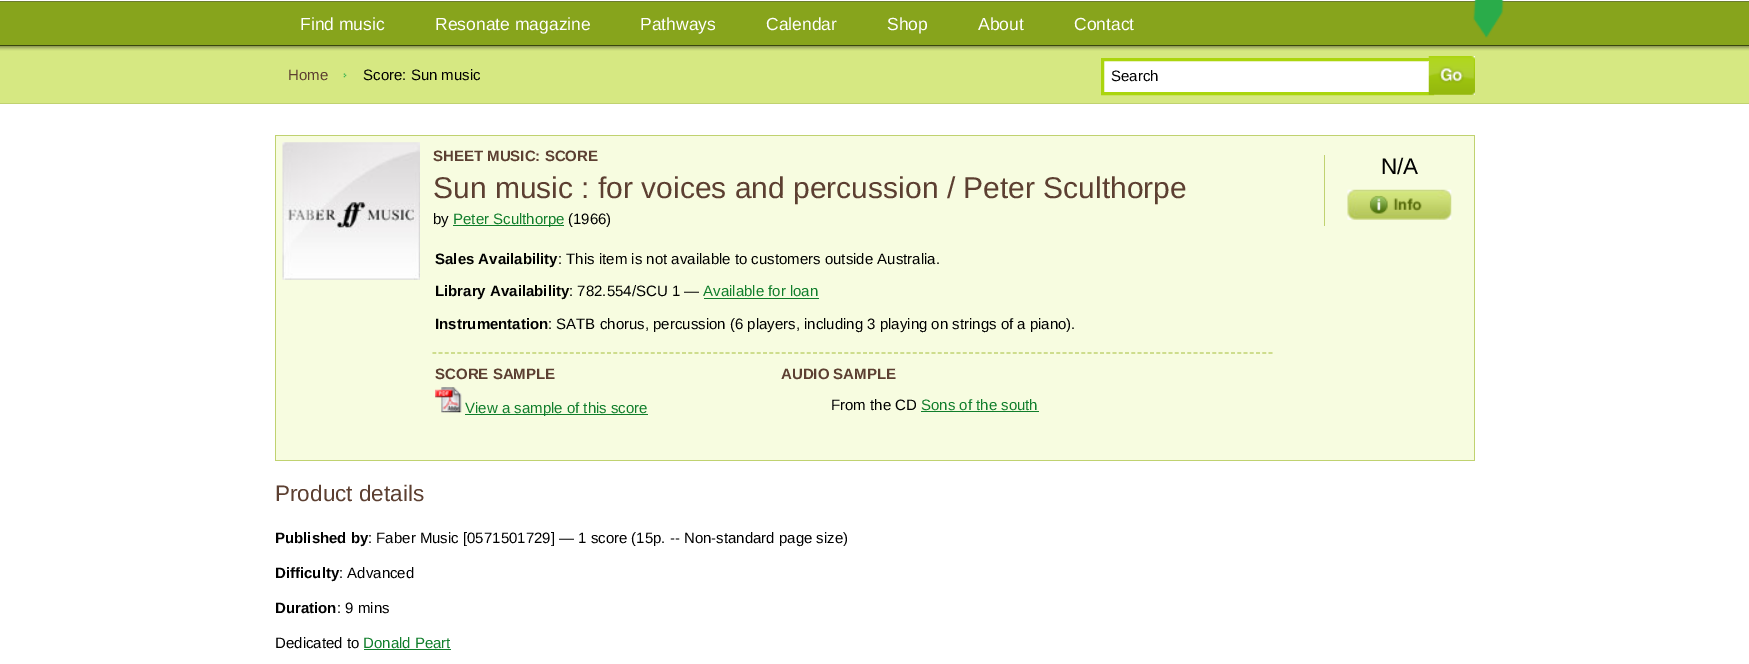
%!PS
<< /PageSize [1749 664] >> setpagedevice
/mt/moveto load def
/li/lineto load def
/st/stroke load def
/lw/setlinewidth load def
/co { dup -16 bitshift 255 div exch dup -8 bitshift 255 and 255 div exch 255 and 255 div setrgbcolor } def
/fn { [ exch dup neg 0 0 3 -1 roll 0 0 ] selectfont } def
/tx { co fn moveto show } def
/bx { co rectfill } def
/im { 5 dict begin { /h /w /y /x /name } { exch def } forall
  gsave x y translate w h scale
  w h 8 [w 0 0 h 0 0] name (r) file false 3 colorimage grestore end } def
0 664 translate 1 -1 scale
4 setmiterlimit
0 0 1749 664 16#87A41C bx
0 0 1749 1 16#FFFFFF bx
0 1 1749 1 16#6C7C2F bx
0 45 1749 1 16#3A470E bx
0 51 1749 52 16#D6E882 bx
(media/1.raw) 0 46 1749 5 im
0 103 1749 1 16#C0D270 bx
(media/2.raw) 343 73 4 5 im
1104 61 325 31 16#FFFFFF bx
16#ABD50E co
3 lw
1102.5 59.5 330 34 rectstroke
(media/3.raw) 1428 56 47 39 im
0 104 1749 560 16#FFFFFF bx
276 136 1198 324 16#F7FCE0 bx
275 135 1200 1 16#C0D270 bx
1474 135 1 326 16#C0D270 bx
275 460 1200 1 16#C0D270 bx
275 135 1 326 16#C0D270 bx
(media/4.raw) 282 142 138 138 im
453 225 111 1 16#107E2B bx
704 298 115 1 16#107E2B bx
16#C0D270 co
1.2 lw
[3.75 2.49] 0 setdash
432.5 353 mt 1272.5 353 li st
(media/5.raw) 435 387 27 26 im
465 414 183 1 16#107E2B bx
921 411 118 1 16#107E2B bx
1324 155 1 71 16#C0D270 bx
(media/6.raw) 1347 189 105 31 im
364 649 87 1 16#107E2B bx
(media/7.raw) 1473 0 31 38 im
(Find music) 300 30 /LiberationSans-Regular 17.5 16#FFFFFF tx
(Resonate magazine) 435 30 /LiberationSans-Regular 17.5 16#FFFFFF tx
(Pathways) 640 30 /LiberationSans-Regular 17.5 16#FFFFFF tx
(Calendar) 766 30 /LiberationSans-Regular 17.5 16#FFFFFF tx
(Shop) 887 30 /LiberationSans-Regular 17.5 16#FFFFFF tx
(About) 978 30 /LiberationSans-Regular 17.5 16#FFFFFF tx
(Contact) 1074 30 /LiberationSans-Regular 17.5 16#FFFFFF tx
(Home) 288 80 /LiberationSans-Regular 15 16#5C3F31 tx
(Score: Sun music) 363 80 /LiberationSans-Regular 15 16#000000 tx
(Search) 1111 81 /LiberationSans-Regular 15 16#000000 tx
(SHEET MUSIC: SCORE) 433 161 /LiberationSans-Bold 15 16#5C3F31 tx
(Sun music : for voices and percussion / Peter Sculthorpe) 433 198 /LiberationSans-Regular 30 16#5C3F31 tx
(by) 433 224 /LiberationSans-Regular 15 16#000000 tx
(Peter Sculthorpe) 453 224 /LiberationSans-Regular 15 16#107E2B tx
(\(1966\)) 568 224 /LiberationSans-Regular 15 16#000000 tx
(Sales Availability) 435 264 /LiberationSans-Bold 15 16#000000 tx
(: This item is not available to customers outside Australia.) 558 264 /LiberationSans-Regular 15 16#000000 tx
(Library Availability) 435 296 /LiberationSans-Bold 15 16#000000 tx
(: 782.554/SCU 1 —) 569 296 /LiberationSans-Regular 15 16#000000 tx
(Available for loan) 703 296 /LiberationSans-Regular 15 16#107E2B tx
(Instrumentation) 435 329 /LiberationSans-Bold 15 16#000000 tx
(: SATB chorus, percussion \(6 players, including 3 playing on strings of a piano\).) 548 329 /LiberationSans-Regular 15 16#000000 tx
(SCORE SAMPLE) 435 379 /LiberationSans-Bold 15 16#5C3F31 tx
(View a sample of this score) 465 413 /LiberationSans-Regular 15 16#107E2B tx
(AUDIO SAMPLE) 781 379 /LiberationSans-Bold 15 16#5C3F31 tx
(From the CD) 831 410 /LiberationSans-Regular 15 16#000000 tx
(Sons of the south) 921 410 /LiberationSans-Regular 15 16#107E2B tx
(N/A) 1381 174 /LiberationSans-Regular 22.5 16#000000 tx
(Product details) 275 501 /LiberationSans-Regular 22.5 16#5C3F31 tx
(Published by) 275 543 /LiberationSans-Bold 15 16#000000 tx
(: Faber Music [0571501729] — 1 score \(15p. -- Non-standard page size\)) 368 543 /LiberationSans-Regular 15 16#000000 tx
(Difficulty) 275 578 /LiberationSans-Bold 15 16#000000 tx
(: Advanced) 339 578 /LiberationSans-Regular 15 16#000000 tx
(Duration) 275 613 /LiberationSans-Bold 15 16#000000 tx
(: 9 mins) 337 613 /LiberationSans-Regular 15 16#000000 tx
(Dedicated to) 275 648 /LiberationSans-Regular 15 16#000000 tx
(Donald Peart) 363 648 /LiberationSans-Regular 15 16#107E2B tx
showpage
